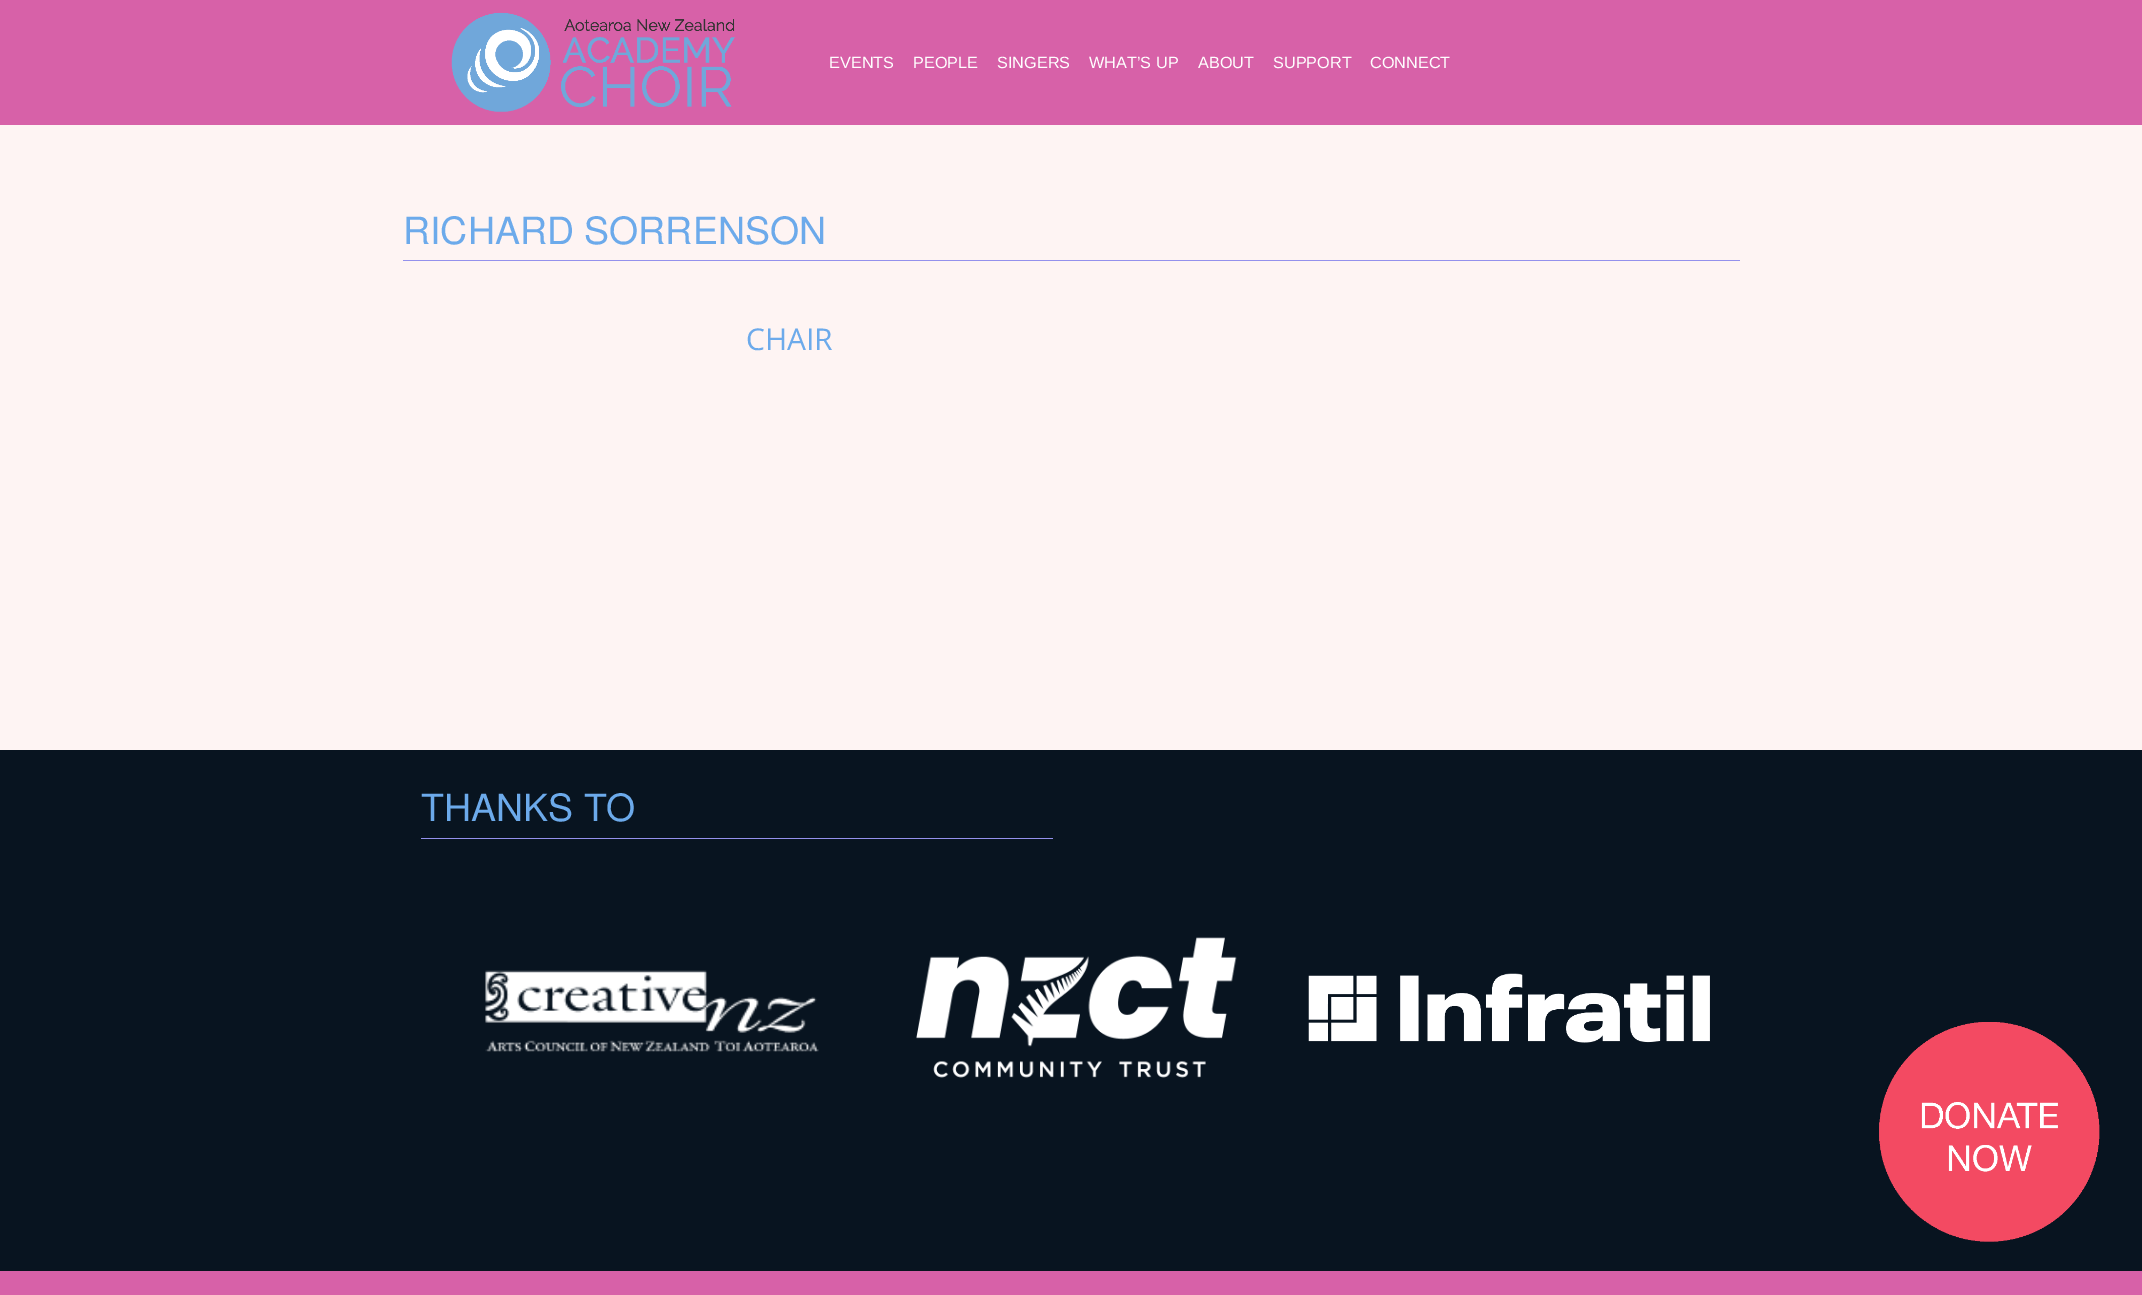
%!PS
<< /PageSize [2142 1295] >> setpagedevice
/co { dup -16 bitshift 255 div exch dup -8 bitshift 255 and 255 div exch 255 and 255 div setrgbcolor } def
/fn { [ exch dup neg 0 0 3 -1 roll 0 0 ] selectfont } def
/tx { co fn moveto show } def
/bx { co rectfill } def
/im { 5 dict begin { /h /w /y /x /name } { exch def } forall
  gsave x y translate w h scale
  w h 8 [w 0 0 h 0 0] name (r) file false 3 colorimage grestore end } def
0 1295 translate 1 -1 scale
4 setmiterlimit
0 0 2142 1295 16#D761A8 bx
(media/1.raw) 451 12 284 100 im
0 125 2142 625 16#FEF4F3 bx
403 260 1337 1 16#9491EC bx
0 750 2142 521 16#081420 bx
421 838 632 1 16#9491EC bx
(media/2.raw) 485 970 334 82 im
(media/3.raw) 916 937 321 141 im
(media/4.raw) 1308 973 402 70 im
(media/5.raw) 1879 1022 221 220 im
(EVENTS) 829 68 /LiberationSans-Regular 16.25 16#FFFFFF tx
(PEOPLE) 913 68 /LiberationSans-Regular 16.25 16#FFFFFF tx
(SINGERS) 997 68 /LiberationSans-Regular 16.25 16#FFFFFF tx
(WHAT’S UP) 1089 68 /LiberationSans-Regular 16.25 16#FFFFFF tx
(ABOUT) 1198 68 /LiberationSans-Regular 16.25 16#FFFFFF tx
(SUPPORT) 1273 68 /LiberationSans-Regular 16.25 16#FFFFFF tx
(CONNECT) 1370 68 /LiberationSans-Regular 16.25 16#FFFFFF tx
(RICHARD SORRENSON) 403 244 /TeXGyreHeros-Regular 37.5 16#6CAAEB tx
(CHAIR) 746 350 /OpenSans-Regular 30 16#6CAAEB tx
(THANKS TO) 421 821 /TeXGyreHeros-Regular 37.5 16#6CAAEB tx
showpage
